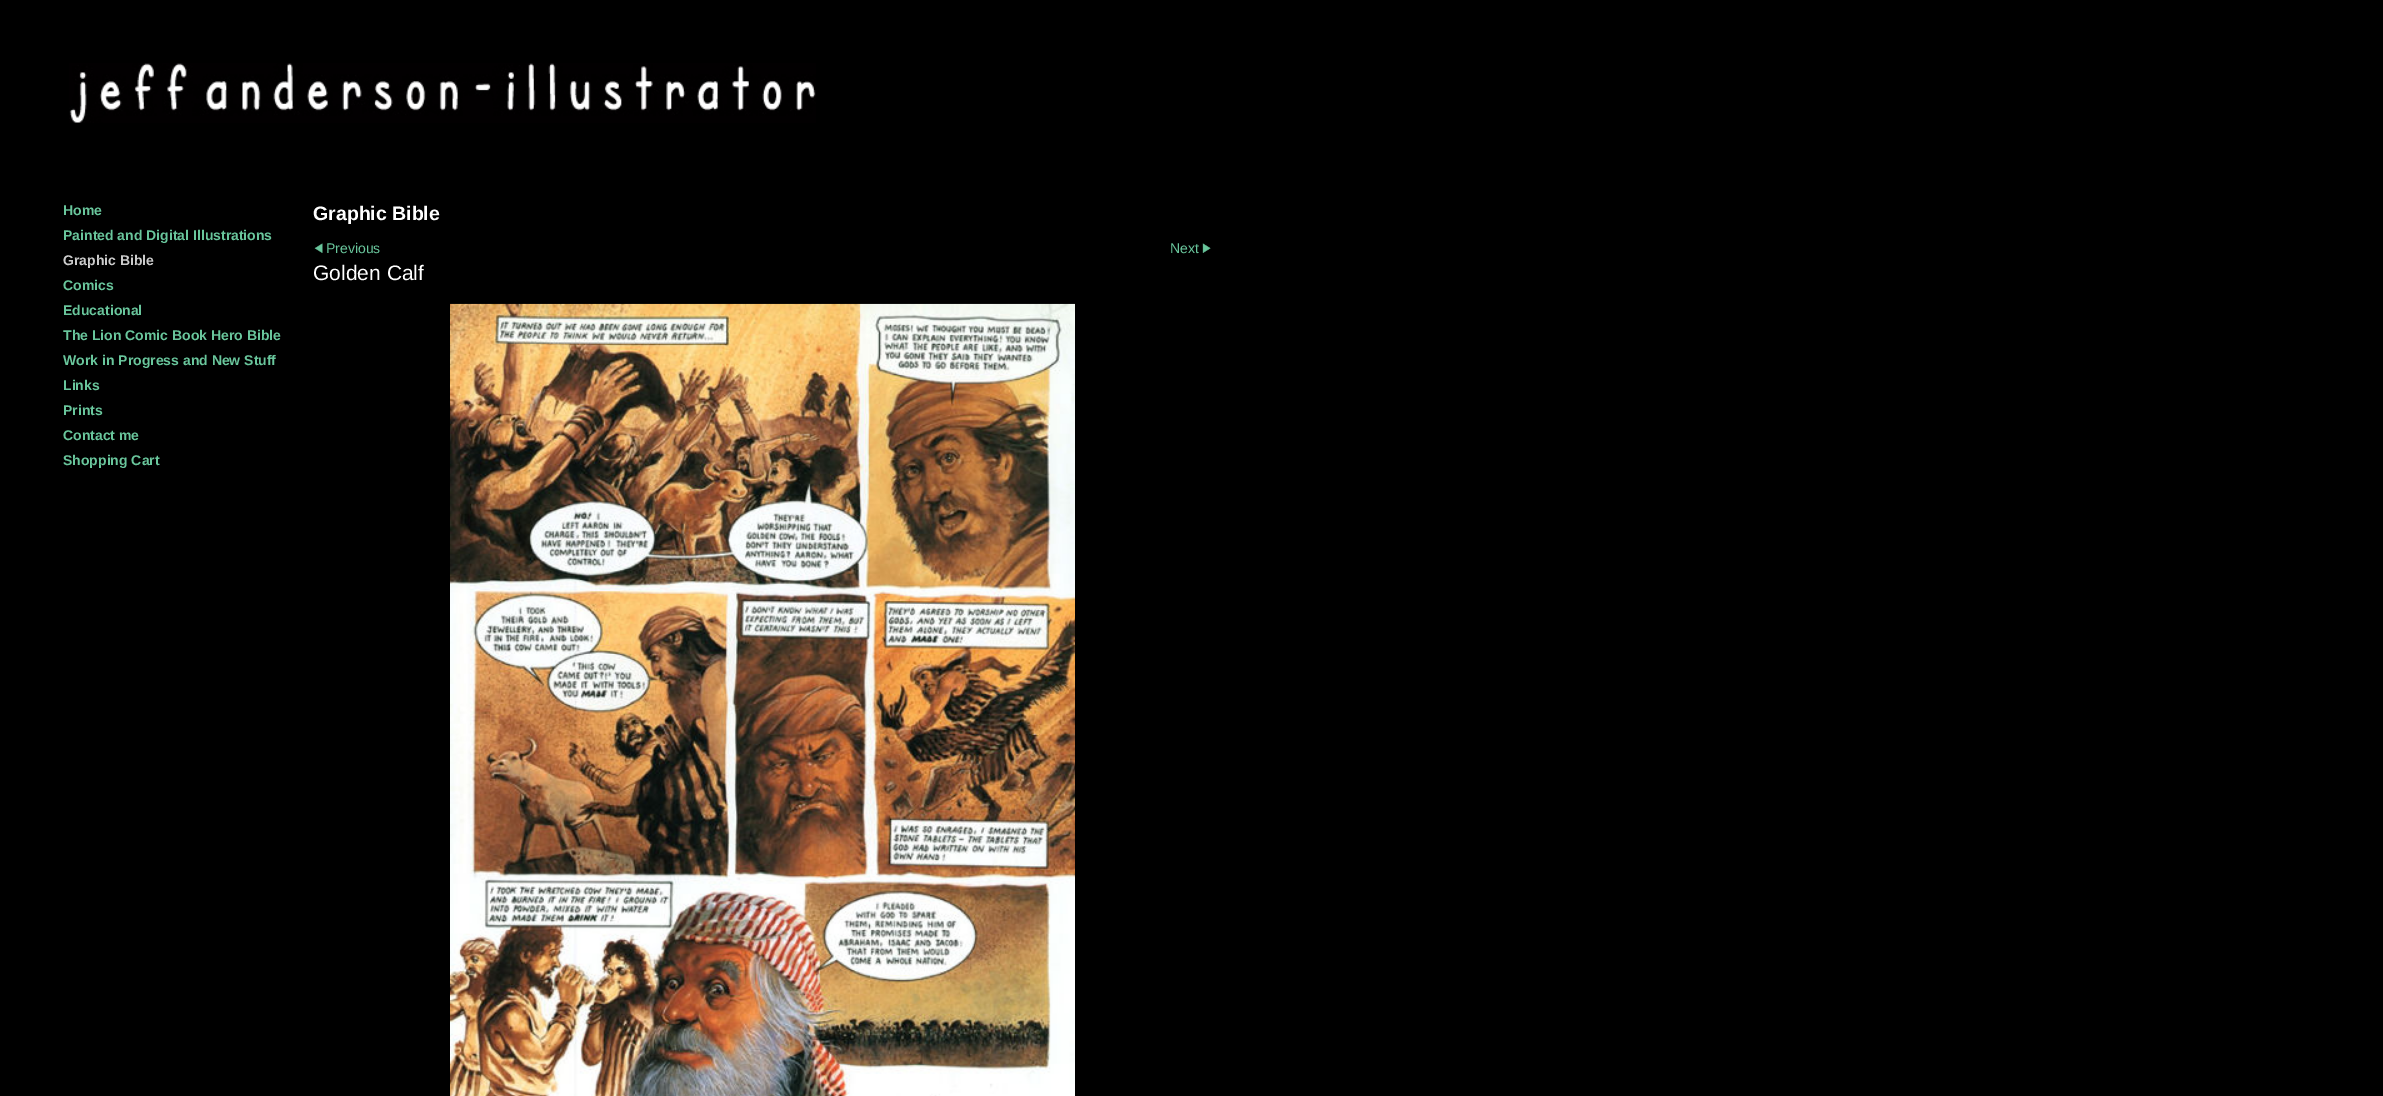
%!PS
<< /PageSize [2383 1096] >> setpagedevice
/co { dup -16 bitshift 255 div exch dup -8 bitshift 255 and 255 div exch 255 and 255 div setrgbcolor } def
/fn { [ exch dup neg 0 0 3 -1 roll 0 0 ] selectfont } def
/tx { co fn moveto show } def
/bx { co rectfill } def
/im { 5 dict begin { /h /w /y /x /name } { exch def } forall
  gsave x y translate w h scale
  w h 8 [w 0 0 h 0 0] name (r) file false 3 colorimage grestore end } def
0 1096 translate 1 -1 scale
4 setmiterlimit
0 0 2383 1096 16#000000 bx
(media/1.raw) 69 63 747 60 im
(media/2.raw) 314 243 9 10 im
(media/3.raw) 1202 243 9 10 im
(media/4.raw) 450 303 625 793 im
(Home) 63 215 /LiberationSans-Bold 14 16#69C69C tx
(Painted and Digital Illustrations) 63 240 /LiberationSans-Bold 14 16#69C69C tx
(Graphic Bible) 63 265 /LiberationSans-Bold 14 16#CCCCCC tx
(Comics) 63 290 /LiberationSans-Bold 14 16#69C69C tx
(Educational) 63 315 /LiberationSans-Bold 14 16#69C69C tx
(The Lion Comic Book Hero Bible) 63 340 /LiberationSans-Bold 14 16#69C69C tx
(Work in Progress and New Stuff) 63 365 /LiberationSans-Bold 14 16#69C69C tx
(Links) 63 390 /LiberationSans-Bold 14 16#69C69C tx
(Prints) 63 415 /LiberationSans-Bold 14 16#69C69C tx
(Contact me) 63 440 /LiberationSans-Bold 14 16#69C69C tx
(Shopping Cart) 63 465 /LiberationSans-Bold 14 16#69C69C tx
(Graphic Bible) 313 220 /LiberationSans-Bold 19.5 16#FFFFFF tx
(Previous) 326 253 /LiberationSans-Regular 14 16#69C69C tx
(Next) 1170 253 /LiberationSans-Regular 14 16#69C69C tx
(Golden Calf) 313 280 /LiberationSans-Regular 21 16#FFFFFF tx
showpage
